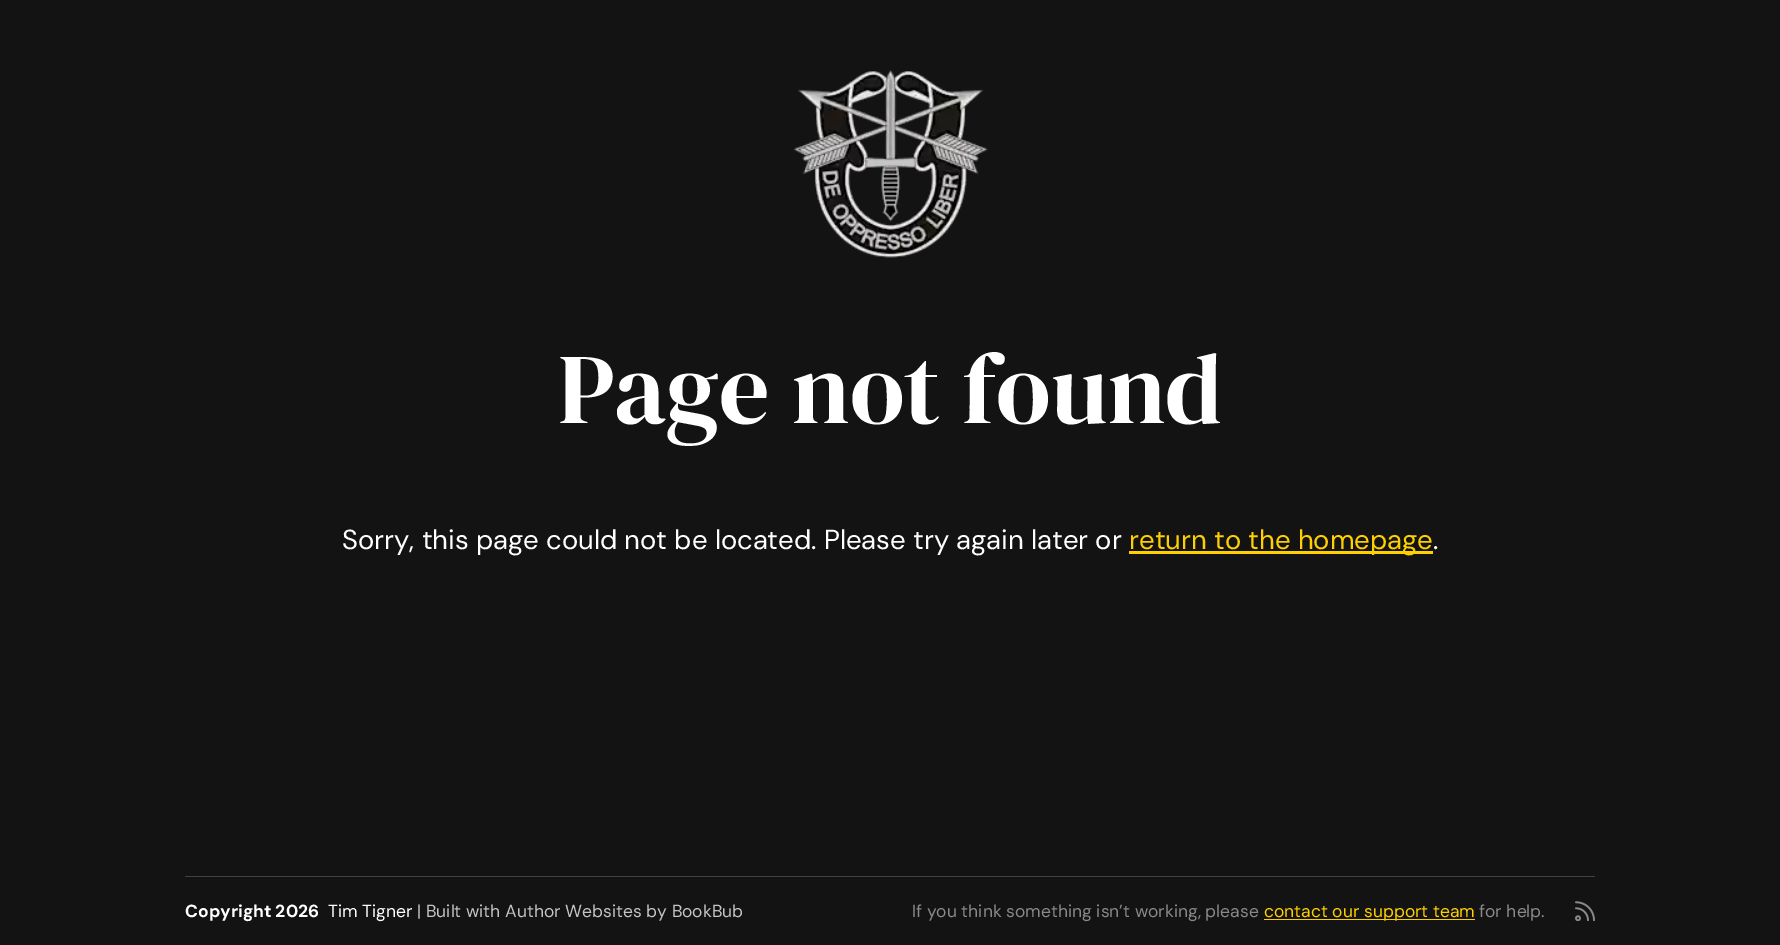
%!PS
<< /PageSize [1780 945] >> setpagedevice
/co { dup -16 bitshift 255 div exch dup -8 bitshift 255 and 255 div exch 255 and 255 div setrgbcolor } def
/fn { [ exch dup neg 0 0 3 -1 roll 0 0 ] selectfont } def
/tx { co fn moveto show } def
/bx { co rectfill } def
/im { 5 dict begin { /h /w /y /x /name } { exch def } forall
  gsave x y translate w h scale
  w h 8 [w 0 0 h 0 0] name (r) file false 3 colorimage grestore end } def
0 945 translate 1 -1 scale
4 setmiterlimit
0 0 1780 945 16#131313 bx
(media/1.raw) 793 70 195 188 im
1129 551 304 3 16#FFD000 bx
185 876 1410 1 16#424242 bx
1264 919 211 1 16#FFD000 bx
(media/2.raw) 1575 901 20 20 im
(Page not found) 558 423 /DMSerifDisplay-Regular 100 16#FFFFFF tx
(Sorry, this page could not be located. Please try again later or) 342 549 /DMSans-Regular 27.5 16#FFFFFF tx
(return to the homepage) 1129 549 /DMSans-Regular 27.5 16#FFD000 tx
(.) 1433 549 /DMSans-Regular 27.5 16#FFFFFF tx
(Copyright 2026) 185 917 /DMSans-Bold 17.5 16#FFFFFF tx
(Tim Tigner) 328 917 /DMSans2-Regular 17.5 16#FFFFFF tx
(| Built with Author Websites by BookBub) 417 917 /DMSans2-Regular 17.5 16#C4C4C4 tx
(If you think something isn’t working, please) 912 917 /DMSans2-Regular 17.5 16#898989 tx
(contact our support team) 1264 917 /DMSans2-Regular 17.5 16#FFD000 tx
(for help.) 1479 917 /DMSans2-Regular 17.5 16#898989 tx
showpage
